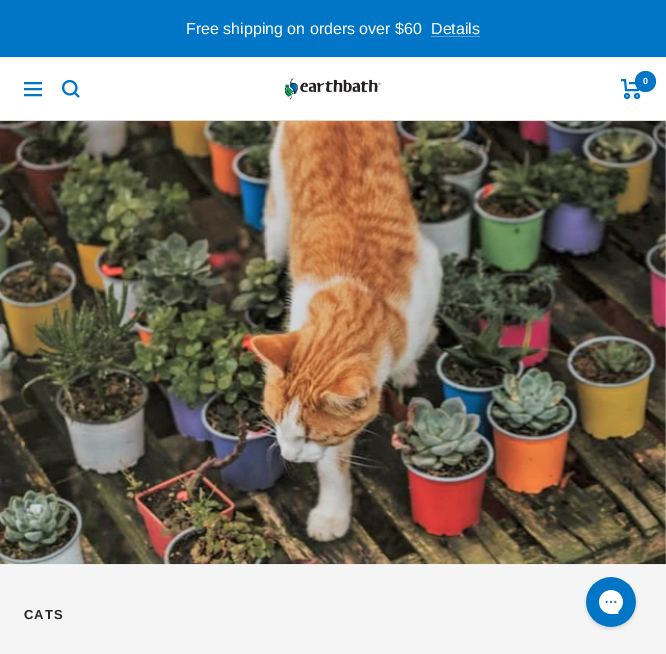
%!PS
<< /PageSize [666 654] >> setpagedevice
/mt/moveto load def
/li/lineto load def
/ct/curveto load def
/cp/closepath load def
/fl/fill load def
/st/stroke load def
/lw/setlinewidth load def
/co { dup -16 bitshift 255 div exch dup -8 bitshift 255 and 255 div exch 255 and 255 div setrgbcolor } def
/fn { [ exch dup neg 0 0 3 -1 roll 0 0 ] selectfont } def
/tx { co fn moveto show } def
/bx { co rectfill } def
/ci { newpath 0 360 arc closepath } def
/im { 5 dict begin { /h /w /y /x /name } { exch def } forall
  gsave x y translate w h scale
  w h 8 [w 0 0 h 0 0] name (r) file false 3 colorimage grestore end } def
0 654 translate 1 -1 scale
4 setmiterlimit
0 0 666 654 16#FFFFFF bx
0 0 666 57 16#0176C7 bx
431 36 49 1 16#5AA6DB bx
0 120 666 1 16#D9D9D9 bx
16#0176C7 co
2 lw
24 83 mt 42 83 li 24 95 mt 42 95 li cp 24 89 mt 42 89 li cp 74.5 92.5 mt 80.5 86 71.5 77 65 83 ct 59 89.5 68 98.5 74.5 92.5 ct cp 74.5 92.5 mt 79 97 li st
(media/1.raw) 284 78 97 22 im
621 80 mt 625 80 li 626 90 li 638 90 li 640 83 li 629 83 li st
627 96 2 ci st
637 96 2 ci st
645.5 81.5 10.5 ci fl
0 121 666 533 16#F5F5F5 bx
(media/2.raw) 0 121 666 444 im
(media/3.raw) 584 577 54 54 im
(Free shipping on orders over $60) 186 34 /LiberationSans-Regular 16 16#FFFFFF tx
(Details) 431 34 /LiberationSans-Regular 16 16#FFFFFF tx
(0) 643 84 /LiberationSans-Bold 9 16#FFFFFF tx
/LiberationSans-Bold 13 fn
16#282828 co
24 619 mt 1 0 (CATS) ashow
showpage
